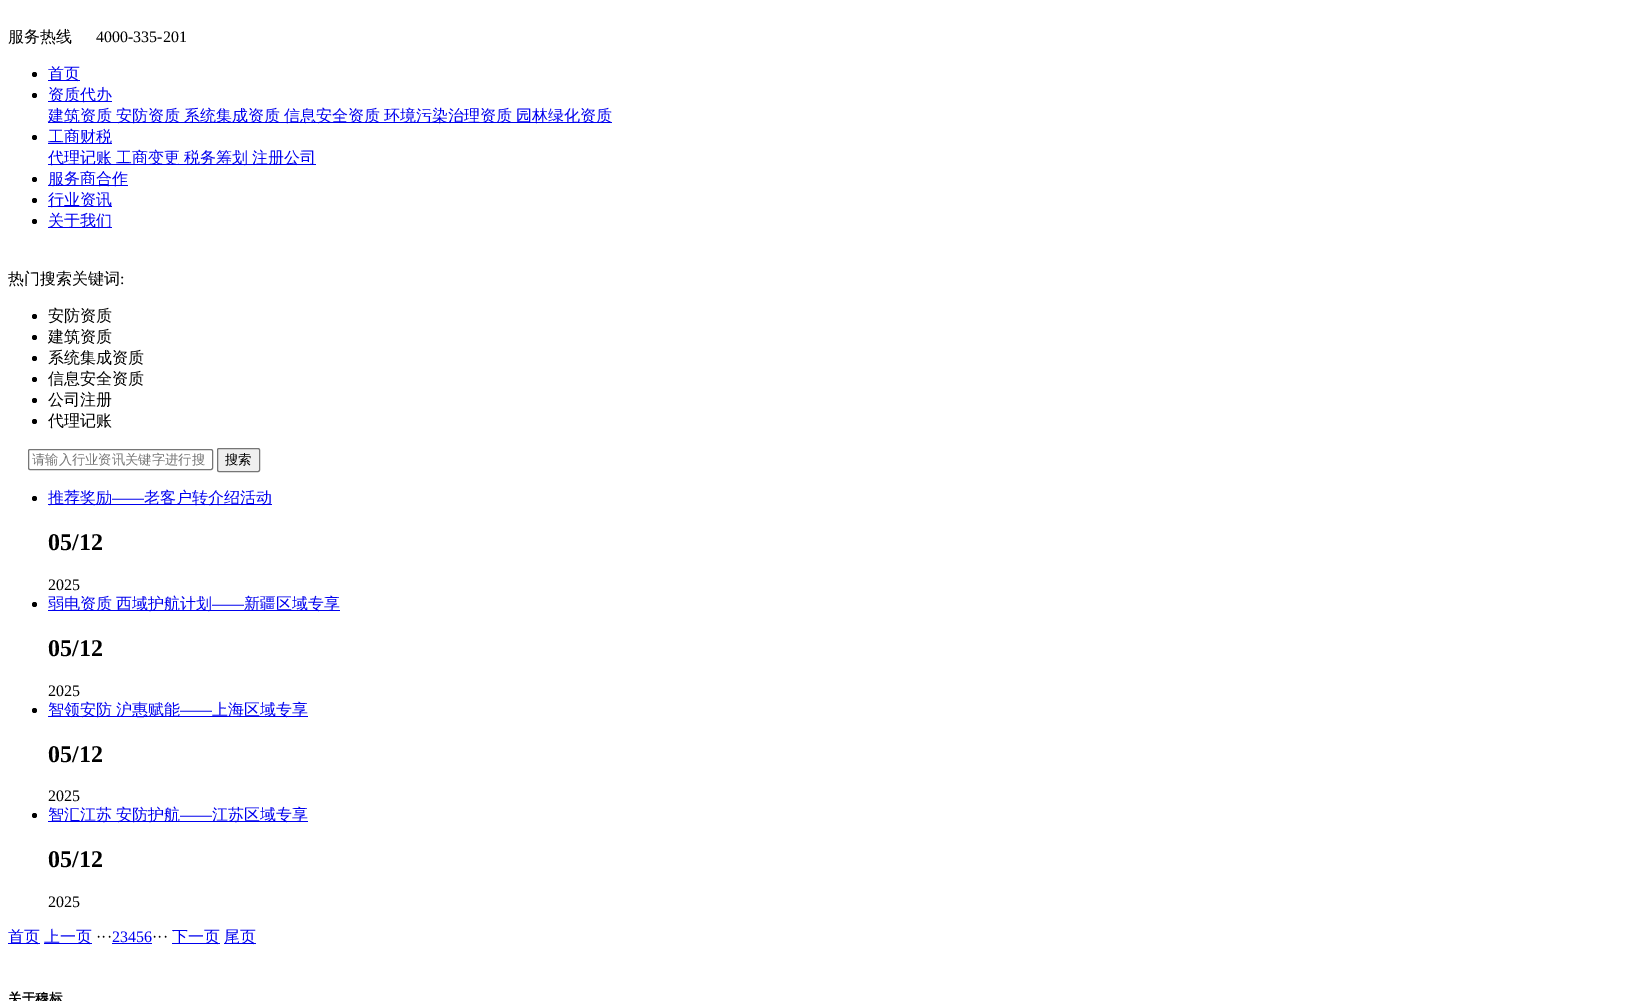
%!PS
<< /PageSize [1633 1001] >> setpagedevice
/mt/moveto load def
/fl/fill load def
/st/stroke load def
/gs/gsave load def
/gr/grestore load def
/co { dup -16 bitshift 255 div exch dup -8 bitshift 255 and 255 div exch 255 and 255 div setrgbcolor } def
/fn { [ exch dup neg 0 0 3 -1 roll 0 0 ] selectfont } def
/tx { co fn moveto show } def
/bx { co rectfill } def
/ci { newpath 0 360 arc closepath } def
/rr { 5 dict begin { /r /h /w /y /x } { exch def } forall
  x r add y moveto x w add y 2 copy h add r arct x w add y h add x 1 index r arct
  x y h add x y r arct x y 2 copy exch w add exch r arct closepath end } def
0 1001 translate 1 -1 scale
4 setmiterlimit
0 0 1633 1001 16#FFFFFF bx
16#000000 co
34.5 74.5 2.5 ci fl
48 80 32 1 16#0000EE bx
16#000000 co
34.5 95.5 2.5 ci fl
48 101 64 1 16#0000EE bx
48 122 564 1 16#0000EE bx
16#000000 co
34.5 137.5 2.5 ci fl
48 143 64 1 16#0000EE bx
48 164 268 1 16#0000EE bx
16#000000 co
34.5 179.5 2.5 ci fl
48 185 80 1 16#0000EE bx
16#000000 co
34.5 200.5 2.5 ci fl
48 206 64 1 16#0000EE bx
16#000000 co
34.5 221.5 2.5 ci fl
48 227 64 1 16#0000EE bx
16#000000 co
34.5 316.5 2.5 ci fl
34.5 337.5 2.5 ci fl
34.5 358.5 2.5 ci fl
34.5 379.5 2.5 ci fl
34.5 400.5 2.5 ci fl
34.5 421.5 2.5 ci fl
16#767676 co
28.5 449.5 184 20 1.5 rr st
16#EFEFEF co
217.5 448.5 42 23 1.5 rr gs fl gr
16#767676 co
st
16#000000 co
34.5 498.5 2.5 ci fl
48 504 224 1 16#0000EE bx
16#000000 co
34.5 604.5 2.5 ci fl
48 610 292 1 16#0000EE bx
16#000000 co
34.5 710.5 2.5 ci fl
48 716 260 1 16#0000EE bx
16#000000 co
34.5 815.5 2.5 ci fl
48 821 260 1 16#0000EE bx
8 943 32 1 16#0000EE bx
44 943 48 1 16#0000EE bx
112 943 40 1 16#0000EE bx
172 943 48 1 16#0000EE bx
224 943 32 1 16#0000EE bx
(服务热线) 8 42 /WenQuanYiZenHei-Medium 16 16#000000 tx
(4000-335-201) 96 42 /LiberationSerif-Regular 16 16#000000 tx
(首页) 48 79 /WenQuanYiZenHei-Medium 16 16#0000EE tx
(资质代办) 48 100 /WenQuanYiZenHei-Medium 16 16#0000EE tx
(建筑资质) 48 121 /WenQuanYiZenHei-Medium 16 16#0000EE tx
(安防资质) 116 121 /WenQuanYiZenHei-Medium 16 16#0000EE tx
(系统集成资质) 184 121 /WenQuanYiZenHei-Medium 16 16#0000EE tx
(信息安全资质) 284 121 /WenQuanYiZenHei-Medium 16 16#0000EE tx
(环境污染治理资质) 384 121 /WenQuanYiZenHei-Medium 16 16#0000EE tx
(园林绿化资质) 516 121 /WenQuanYiZenHei-Medium 16 16#0000EE tx
(工商财税) 48 142 /WenQuanYiZenHei-Medium 16 16#0000EE tx
(代理记账) 48 163 /WenQuanYiZenHei-Medium 16 16#0000EE tx
(工商变更) 116 163 /WenQuanYiZenHei-Medium 16 16#0000EE tx
(税务筹划) 184 163 /WenQuanYiZenHei-Medium 16 16#0000EE tx
(注册公司) 252 163 /WenQuanYiZenHei-Medium 16 16#0000EE tx
(服务商合作) 48 184 /WenQuanYiZenHei-Medium 16 16#0000EE tx
(行业资讯) 48 205 /WenQuanYiZenHei-Medium 16 16#0000EE tx
(关于我们) 48 226 /WenQuanYiZenHei-Medium 16 16#0000EE tx
(热门搜索关键词) 8 284 /WenQuanYiZenHei-Medium 16 16#000000 tx
(:) 120 284 /LiberationSerif-Regular 16 16#000000 tx
(安防资质) 48 321 /WenQuanYiZenHei-Medium 16 16#000000 tx
(建筑资质) 48 342 /WenQuanYiZenHei-Medium 16 16#000000 tx
(系统集成资质) 48 363 /WenQuanYiZenHei-Medium 16 16#000000 tx
(信息安全资质) 48 384 /WenQuanYiZenHei-Medium 16 16#000000 tx
(公司注册) 48 405 /WenQuanYiZenHei-Medium 16 16#000000 tx
(代理记账) 48 426 /WenQuanYiZenHei-Medium 16 16#000000 tx
(请输入行业资讯关键字进行搜) 32 464 /WenQuanYiZenHei-Medium 13.3 16#757575 tx
(搜索) 225 464 /WenQuanYiZenHei-Medium 13.3 16#000000 tx
(推荐奖励) 48 503 /WenQuanYiZenHei-Medium 16 16#0000EE tx
(——) 112 503 /LiberationSerif-Regular 16 16#0000EE tx
(老客户转介绍活动) 144 503 /WenQuanYiZenHei-Medium 16 16#0000EE tx
(05/12) 48 550 /LiberationSerif-Bold 24 16#000000 tx
(2025) 48 590 /LiberationSerif-Regular 16 16#000000 tx
/WenQuanYiZenHei-Medium 16 fn
16#0000EE co
48 609 mt -1 0 32 (弱电资质 西域护航计划) widthshow
(——) 212 609 /LiberationSerif-Regular 16 16#0000EE tx
(新疆区域专享) 244 609 /WenQuanYiZenHei-Medium 16 16#0000EE tx
(05/12) 48 656 /LiberationSerif-Bold 24 16#000000 tx
(2025) 48 696 /LiberationSerif-Regular 16 16#000000 tx
/WenQuanYiZenHei-Medium 16 fn
16#0000EE co
48 715 mt -1 0 32 (智领安防 沪惠赋能) widthshow
(——) 180 715 /LiberationSerif-Regular 16 16#0000EE tx
(上海区域专享) 212 715 /WenQuanYiZenHei-Medium 16 16#0000EE tx
(05/12) 48 762 /LiberationSerif-Bold 24 16#000000 tx
(2025) 48 801 /LiberationSerif-Regular 16 16#000000 tx
/WenQuanYiZenHei-Medium 16 fn
16#0000EE co
48 820 mt -1 0 32 (智汇江苏 安防护航) widthshow
(——) 180 820 /LiberationSerif-Regular 16 16#0000EE tx
(江苏区域专享) 212 820 /WenQuanYiZenHei-Medium 16 16#0000EE tx
(05/12) 48 867 /LiberationSerif-Bold 24 16#000000 tx
(2025) 48 907 /LiberationSerif-Regular 16 16#000000 tx
(首页) 8 942 /WenQuanYiZenHei-Medium 16 16#0000EE tx
(上一页) 44 942 /WenQuanYiZenHei-Medium 16 16#0000EE tx
(···) 96 942 /LiberationSerif-Regular 16 16#000000 tx
(23456) 112 942 /LiberationSerif-Regular 16 16#0000EE tx
(···) 152 942 /LiberationSerif-Regular 16 16#000000 tx
(下一页) 172 942 /WenQuanYiZenHei-Medium 16 16#0000EE tx
(尾页) 224 942 /WenQuanYiZenHei-Medium 16 16#0000EE tx
(关于穆标) 8 1003 /WenQuanYiZenHei-Bold 13.5 16#000000 tx
showpage
